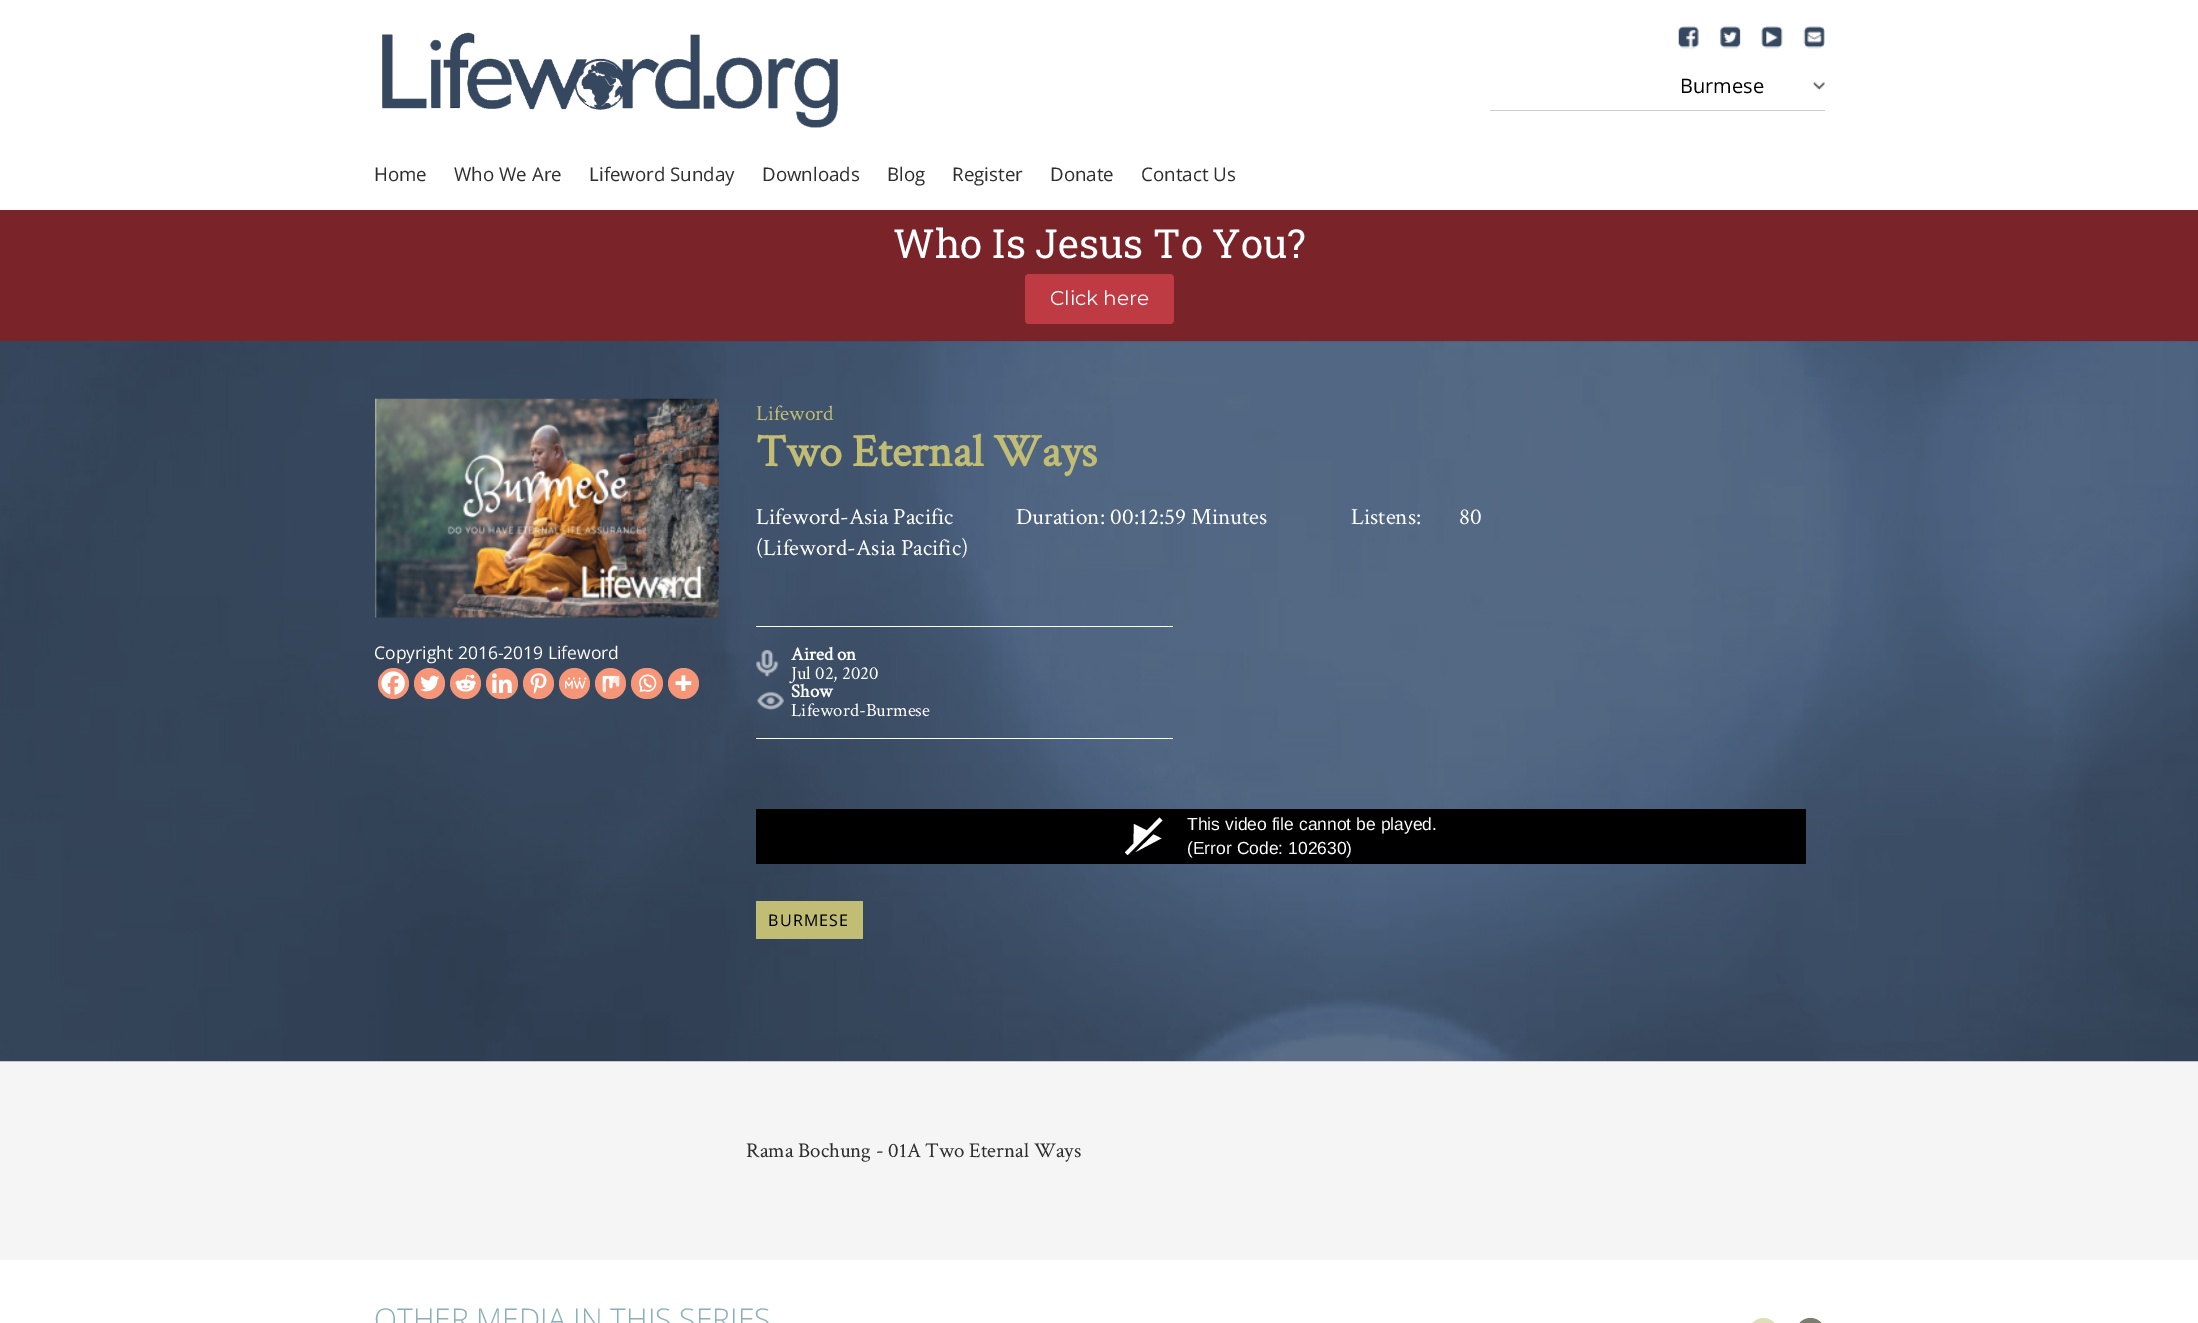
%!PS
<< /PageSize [2198 1323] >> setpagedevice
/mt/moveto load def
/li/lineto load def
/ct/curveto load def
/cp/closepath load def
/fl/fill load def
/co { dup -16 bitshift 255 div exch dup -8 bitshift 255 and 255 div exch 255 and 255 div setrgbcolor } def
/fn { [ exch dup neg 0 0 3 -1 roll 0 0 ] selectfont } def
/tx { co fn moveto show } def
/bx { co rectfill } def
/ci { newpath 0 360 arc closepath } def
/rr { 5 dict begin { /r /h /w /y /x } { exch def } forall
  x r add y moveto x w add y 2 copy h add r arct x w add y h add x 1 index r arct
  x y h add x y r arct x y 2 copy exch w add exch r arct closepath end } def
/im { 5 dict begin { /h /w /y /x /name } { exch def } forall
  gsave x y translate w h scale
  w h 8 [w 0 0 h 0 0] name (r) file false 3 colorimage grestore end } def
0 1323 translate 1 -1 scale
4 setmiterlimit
0 0 2198 1323 16#FFFFFF bx
(media/1.raw) 1678 26 21 23 im
(media/2.raw) 1720 26 21 23 im
(media/3.raw) 1761 26 22 23 im
(media/4.raw) 1803 26 22 23 im
(media/5.raw) 1812 82 13 8 im
1490 110 335 1 16#CDCDCD bx
(media/6.raw) 382 32 456 96 im
0 210 2198 131 16#7A2329 bx
16#BF3B44 co
1025 274 149 50 4 rr fl
0 341 2198 919 16#F5F5F5 bx
(media/7.raw) 0 341 2198 721 im
(media/8.raw) 375 398 344 220 im
16#F69679 co
393.5 683.5 15.5 ci fl
(media/9.raw) 381 671 24 24 im
429.5 683.5 15.5 ci fl
(media/10.raw) 420 675 20 17 im
465.5 683.5 15.5 ci fl
(media/11.raw) 455 674 21 18 im
486 668 32 31 15.5 rr fl
(media/12.raw) 492 673 20 20 im
538.5 683.5 15.5 ci fl
(media/13.raw) 530 673 17 21 im
574.5 683.5 15.5 ci fl
(media/14.raw) 565 677 22 12 im
610.5 683.5 15.5 ci fl
(media/15.raw) 602 675 18 18 im
631 668 32 31 15.5 rr fl
(media/16.raw) 639 674 18 18 im
683.5 683.5 15.5 ci fl
(media/17.raw) 675 675 17 16 im
756 626 417 1 16#FFFFFF bx
756 738 417 1 16#FFFFFF bx
(media/18.raw) 756 650 23 27 im
(media/19.raw) 756 691 28 19 im
756 809 1050 55 16#000000 bx
16#FFFFFF co
1161 838.5 mt 1135.5 852 li 1153.5 834.5 li 1160.5 838 1162 838.5 1161 839 ct cp 1159.5 817.5 mt 1147 830.5 li 1134 824 li 1133.5 843.5 li 1125 852.5 li 1127.5 855 li 1162.5 820.5 li cp fl
756 901 107 38 16#C1BD74 bx
16#E0DEBA co
1749 1318 29 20 14.5 rr fl
16#7E7D6D co
1796 1318 29 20 14.5 rr fl
(Burmese) 1680 93 /OpenSans-Regular 20 16#000000 tx
(Home) 374 181 /OpenSans-Regular 18.75 16#2E2E2E tx
(Who We Are) 454 181 /OpenSans-Regular 18.75 16#2E2E2E tx
(Lifeword Sunday) 589 181 /OpenSans-Regular 18.75 16#2E2E2E tx
(Downloads) 762 181 /OpenSans-Regular 18.75 16#2E2E2E tx
(Blog) 887 181 /OpenSans-Regular 18.75 16#2E2E2E tx
(Register) 952 181 /OpenSans-Regular 18.75 16#2E2E2E tx
(Donate) 1050 181 /OpenSans-Regular 18.75 16#2E2E2E tx
(Contact Us) 1141 181 /OpenSans-Regular 18.75 16#2E2E2E tx
(Who Is Jesus To You?) 893 258 /RobotoSlab-Regular 40 16#FFFFFF tx
(Click here) 1050 305 /Montserrat-Thin 20 16#FFFFFF tx
(Copyright 2016-2019 Lifeword) 374 659 /OpenSans-Regular 17.5 16#FFFFFF tx
(Lifeword) 756 420 /CrimsonText-Regular 21.5 16#C1BD74 tx
(Two Eternal Ways) 756 466 /CrimsonText-Bold 46 16#C1BD74 tx
(Lifeword-Asia Pacific) 756 524 /CrimsonText-Regular 23.25 16#FFFFFF tx
(\(Lifeword-Asia Pacific\)) 756 555 /CrimsonText-Regular 23.25 16#FFFFFF tx
(Duration: 00:12:59 Minutes) 1016 524 /CrimsonText-Regular 23.25 16#FFFFFF tx
(Listens:) 1351 524 /CrimsonText-Regular 23.25 16#FFFFFF tx
(80) 1459 524 /CrimsonText-Regular 23.25 16#FFFFFF tx
(Aired on) 791 660 /CrimsonText-Bold 18.75 16#FFFFFF tx
(Jul 02, 2020) 791 679 /CrimsonText-Regular 18.75 16#FFFFFF tx
(Show) 791 697 /CrimsonText-Bold 18.75 16#FFFFFF tx
(Lifeword-Burmese) 791 716 /CrimsonText-Regular 18.75 16#FFFFFF tx
(This video file cannot be played.) 1187 830 /LiberationSans-Regular 17.5 16#FFFFFF tx
(\(Error Code: 102630\)) 1187 854 /LiberationSans-Regular 17.5 16#FFFFFF tx
/OpenSans-Regular 16 fn
16#000000 co
768 926 mt 1.25 0 (BURMESE) ashow
(Rama Bochung - 01A Two Eternal Ways) 746 1157 /CrimsonText-Regular 21 16#2E2E2E tx
(OTHER MEDIA IN THIS SERIES) 374 1330 /OpenSans-Light 30 16#8BAFB9 tx
showpage
